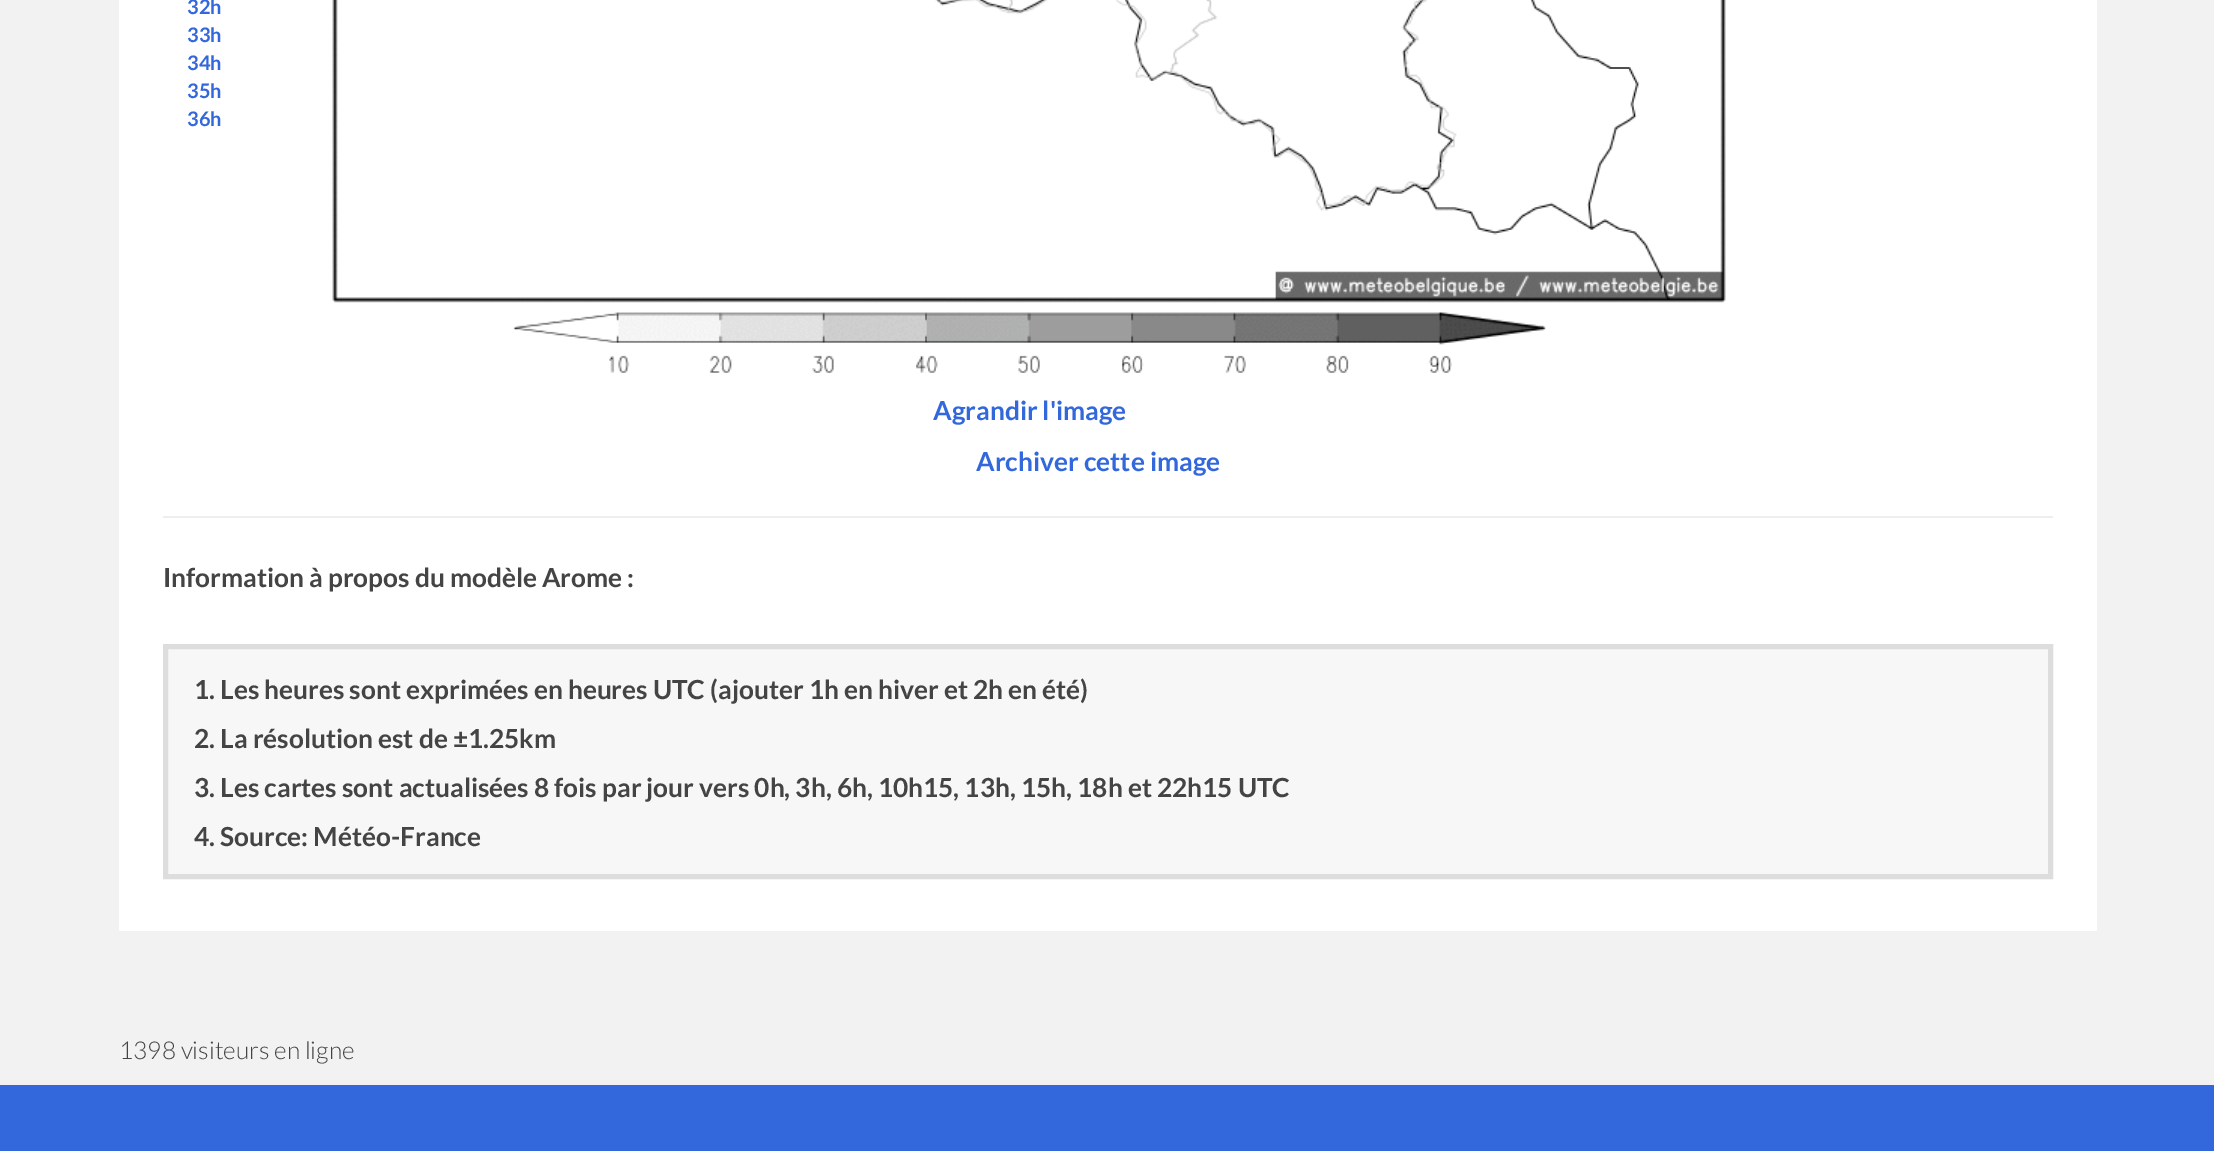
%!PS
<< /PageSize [2214 1151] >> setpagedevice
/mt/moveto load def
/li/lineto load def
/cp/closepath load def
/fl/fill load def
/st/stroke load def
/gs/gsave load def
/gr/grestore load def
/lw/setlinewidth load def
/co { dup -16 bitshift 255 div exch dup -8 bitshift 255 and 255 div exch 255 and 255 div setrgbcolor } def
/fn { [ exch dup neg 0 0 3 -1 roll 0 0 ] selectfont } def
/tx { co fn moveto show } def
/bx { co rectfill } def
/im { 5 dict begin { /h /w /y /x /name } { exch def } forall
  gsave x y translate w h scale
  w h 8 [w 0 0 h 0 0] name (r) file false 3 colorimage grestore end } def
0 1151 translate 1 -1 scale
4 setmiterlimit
0 0 2214 1151 16#F2F2F2 bx
119 0 1978 931 16#FFFFFF bx
(media/1.raw) 332 0 1394 373 im
163 516 1890 2 16#EEEEEE bx
16#F7F7F7 co
165.5 646.5 mt 2050.5 646.5 li 2050.5 876.5 li 165.5 876.5 li cp gs fl gr
16#DDDDDD co
5 lw
st
0 1085 2214 66 16#3268DB bx
(32h) 187 14 /Lato-Bold 20 16#3268DB tx
(33h) 187 42 /Lato-Bold 20 16#3268DB tx
(34h) 187 70 /Lato-Bold 20 16#3268DB tx
(35h) 187 98 /Lato-Bold 20 16#3268DB tx
(36h) 187 126 /Lato-Bold 20 16#3268DB tx
(Agrandir l'image) 933 420 /Lato-Bold 26.25 16#3268DB tx
(Archiver cette image) 976 471 /Lato-Bold 26.25 16#3268DB tx
(Information à propos du modèle Arome :) 163 587 /Lato-Bold 26.25 16#444444 tx
(1. Les heures sont exprimées en heures UTC \(ajouter 1h en hiver et 2h en été\)) 194 699 /Lato-Bold 26.25 16#444444 tx
(2. La résolution est de ±1.25km) 194 748 /Lato-Bold 26.25 16#444444 tx
(3. Les cartes sont actualisées 8 fois par jour vers 0h, 3h, 6h, 10h15, 13h, 15h, 18h et 22h15 UTC) 194 797 /Lato-Bold 26.25 16#444444 tx
(4. Source: Météo-France) 194 846 /Lato-Bold 26.25 16#444444 tx
(1398 visiteurs en ligne) 119 1059 /Lato-Light 24.5 16#444444 tx
showpage
